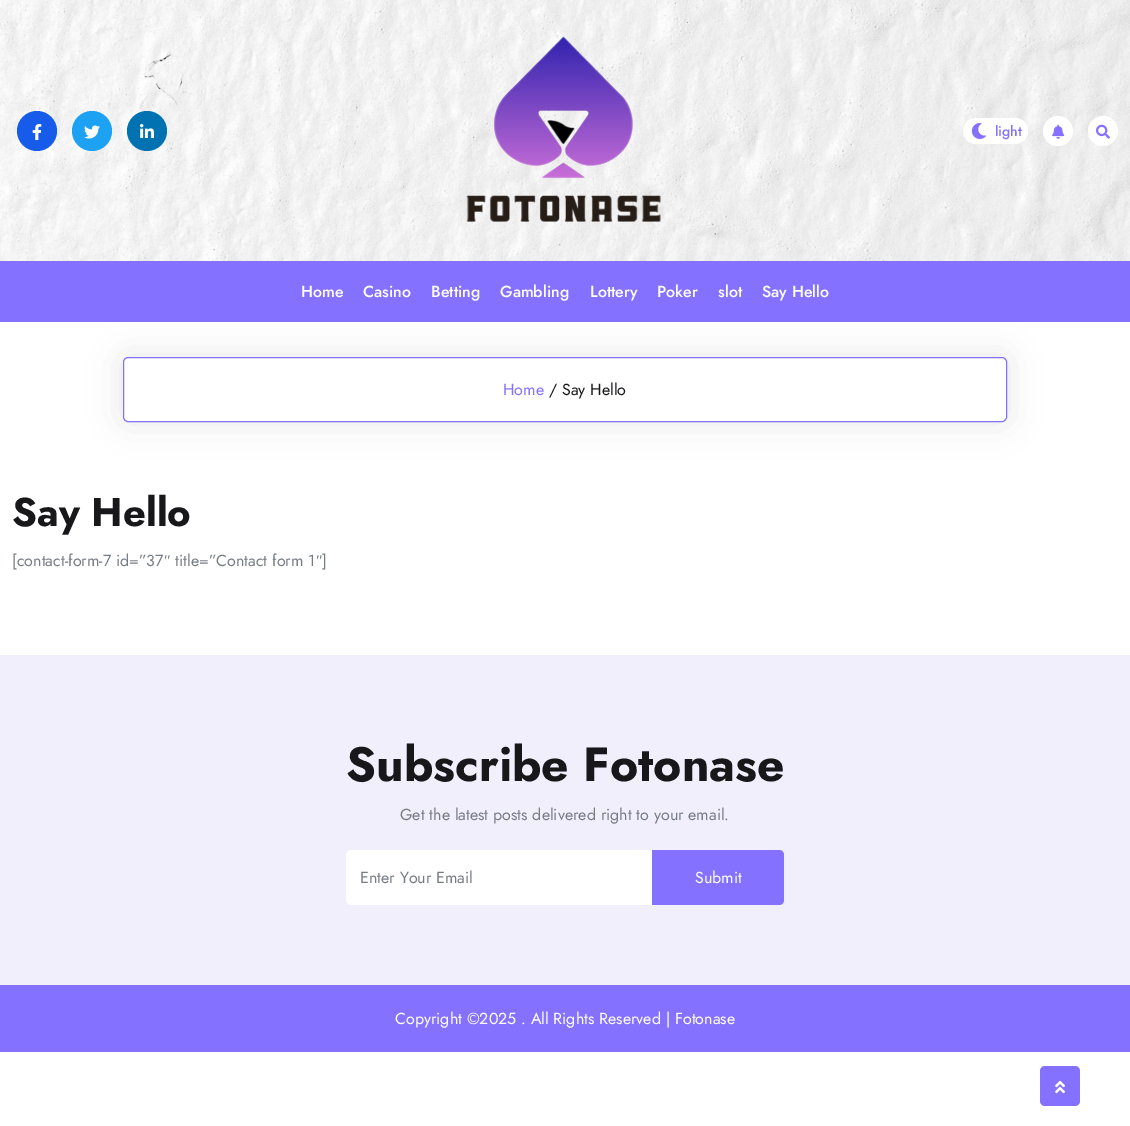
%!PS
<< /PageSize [1130 1126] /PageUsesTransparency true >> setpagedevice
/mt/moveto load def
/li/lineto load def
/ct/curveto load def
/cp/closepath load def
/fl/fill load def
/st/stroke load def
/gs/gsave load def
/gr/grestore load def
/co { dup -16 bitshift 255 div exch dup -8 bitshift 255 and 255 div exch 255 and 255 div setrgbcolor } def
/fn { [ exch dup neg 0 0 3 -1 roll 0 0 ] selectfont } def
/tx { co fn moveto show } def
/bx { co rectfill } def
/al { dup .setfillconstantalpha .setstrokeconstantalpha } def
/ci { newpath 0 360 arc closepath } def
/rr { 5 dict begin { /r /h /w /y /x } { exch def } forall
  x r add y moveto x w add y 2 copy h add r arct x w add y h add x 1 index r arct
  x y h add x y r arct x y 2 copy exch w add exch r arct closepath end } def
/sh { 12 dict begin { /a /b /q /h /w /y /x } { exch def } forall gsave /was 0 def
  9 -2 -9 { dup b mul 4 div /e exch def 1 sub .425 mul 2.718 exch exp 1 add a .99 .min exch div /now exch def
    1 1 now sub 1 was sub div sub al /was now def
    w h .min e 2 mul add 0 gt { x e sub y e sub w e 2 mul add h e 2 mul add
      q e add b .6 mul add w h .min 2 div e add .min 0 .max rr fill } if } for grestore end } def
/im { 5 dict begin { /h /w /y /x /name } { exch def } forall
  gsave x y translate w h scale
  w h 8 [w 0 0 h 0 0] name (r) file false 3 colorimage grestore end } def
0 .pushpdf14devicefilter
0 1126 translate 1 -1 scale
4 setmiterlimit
0 0 1130 1126 16#FFFFFF bx
(media/1.raw) 0 0 1130 261 im
16#175BEB co
37 131 20 ci fl
(media/2.raw) 32 124 10 16 im
16#1DA1F2 co
92 131 20 ci fl
(media/3.raw) 84 125 16 14 im
16#0072B1 co
147 131 20 ci fl
(media/4.raw) 140 124 14 14 im
(media/5.raw) 466 36 195 186 im
16#FFFFFF co
963 118 65 26 13 rr fl
(media/6.raw) 971 123 16 16 im
1058 131 15 ci fl
(media/7.raw) 1052 124 13 15 im
1103 131 15 ci fl
(media/8.raw) 1096 124 14 15 im
gs
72 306 mt 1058 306 li 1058 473 li 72 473 li cp 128 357 mt 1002 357 li 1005 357 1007 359 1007 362 ct 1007 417 li 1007 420 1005 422 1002 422 ct 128 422 li 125 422 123 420 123 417 ct 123 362 li 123 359 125 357 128 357 ct cp eoclip newpath
16#000000 co
123 357 884 65 5 16.5 .1 sh
gr
0 261 1130 61 16#8571FF bx
123.5 357.5 883 64 4.5 rr st
0 655 1130 330 16#F1EFFC bx
16#FFFFFF co
346 850 438 55 5 rr fl
16#8571FF co
652 850 mt 779 850 li 782 850 784 852 784 855 ct 784 900 li 784 903 782 905 779 905 ct 652 905 li cp fl
0 985 1130 67 16#8571FF bx
1040 1066 40 40 5 rr fl
(media/9.raw) 1055 1080 10 14 im
(light) 995 136 /Jost-Medium 14 16#8571FF tx
(Home) 301 297 /Jost-Medium 16 16#FFFFFF tx
(Casino) 363 297 /Jost-Medium 16 16#FFFFFF tx
(Betting) 431 297 /Jost-Medium 16 16#FFFFFF tx
(Gambling) 500 297 /Jost-Medium 16 16#FFFFFF tx
(Lottery) 590 297 /Jost-Medium 16 16#FFFFFF tx
(Poker) 657 297 /Jost-Medium 16 16#FFFFFF tx
(slot) 718 297 /Jost-Medium 16 16#FFFFFF tx
(Say Hello) 762 297 /Jost-Medium 16 16#FFFFFF tx
(Home) 503 395 /Jost-Regular 16 16#8571FF tx
(/ Say Hello) 549 395 /Jost-Regular 16 16#18181B tx
(Say Hello) 12 526 /Jost-Bold 40 16#18181B tx
([contact-form-7 id=”37) 12 566 /Jost-Regular 16 16#767C84 tx
(″) 164 566 /LiberationSerif-Regular 16 16#767C84 tx
(title=”Contact form 1) 175 566 /Jost-Regular 16 16#767C84 tx
(″) 316 566 /LiberationSerif-Regular 16 16#767C84 tx
(]) 322 566 /Jost-Regular 16 16#767C84 tx
(Subscribe Fotonase) 346 781 /Jost-Bold 48 16#18181B tx
(Get the latest posts delivered right to your email.) 400 820 /Jost-Regular 16 16#767C84 tx
(Enter Your Email) 360 883 /Jost-Regular 16 16#767C84 tx
(Submit) 695 883 /Jost-Regular 16 16#FFFFFF tx
(Copyright ©2025 . All Rights Reserved | Fotonase) 395 1024 /Jost-Regular 16 16#FFFFFF tx
.poppdf14devicefilter showpage
